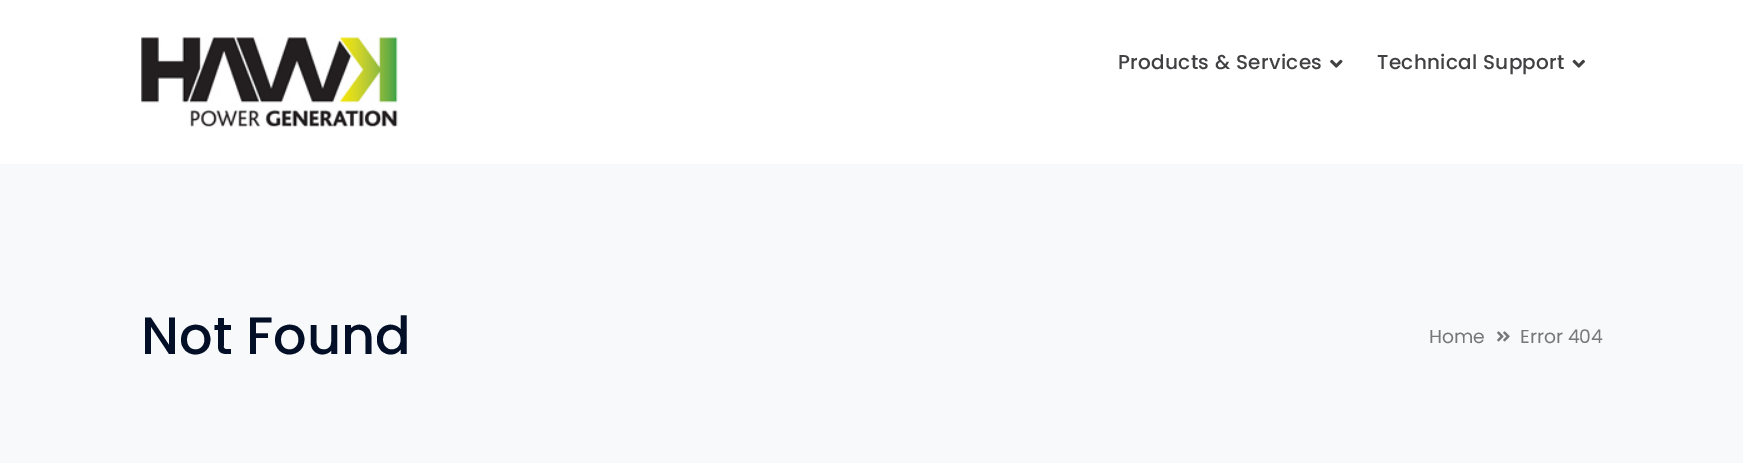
%!PS
<< /PageSize [1743 463] >> setpagedevice
/mt/moveto load def
/co { dup -16 bitshift 255 div exch dup -8 bitshift 255 and 255 div exch 255 and 255 div setrgbcolor } def
/fn { [ exch dup neg 0 0 3 -1 roll 0 0 ] selectfont } def
/tx { co fn moveto show } def
/bx { co rectfill } def
/im { 5 dict begin { /h /w /y /x /name } { exch def } forall
  gsave x y translate w h scale
  w h 8 [w 0 0 h 0 0] name (r) file false 3 colorimage grestore end } def
0 463 translate 1 -1 scale
4 setmiterlimit
0 0 1743 463 16#FFFFFF bx
(media/1.raw) 141 37 257 90 im
(media/2.raw) 1330 59 13 9 im
(media/3.raw) 1572 59 13 9 im
0 164 1743 299 16#F7F9FA bx
(media/4.raw) 1497 331 13 11 im
/Poppins-Medium 20 fn
16#414042 co
1118 69 mt .3 0 (Products & Services) ashow
1377 69 mt .3 0 (Technical Support) ashow
/Poppins-Medium 52.5 fn
16#030F27 co
141 354 mt .1 0 (Not Found) ashow
(Home) 1429 343 /Poppins-Regular 18.75 16#777777 tx
(Error 404) 1520 343 /Poppins-Regular 18.75 16#777777 tx
showpage
